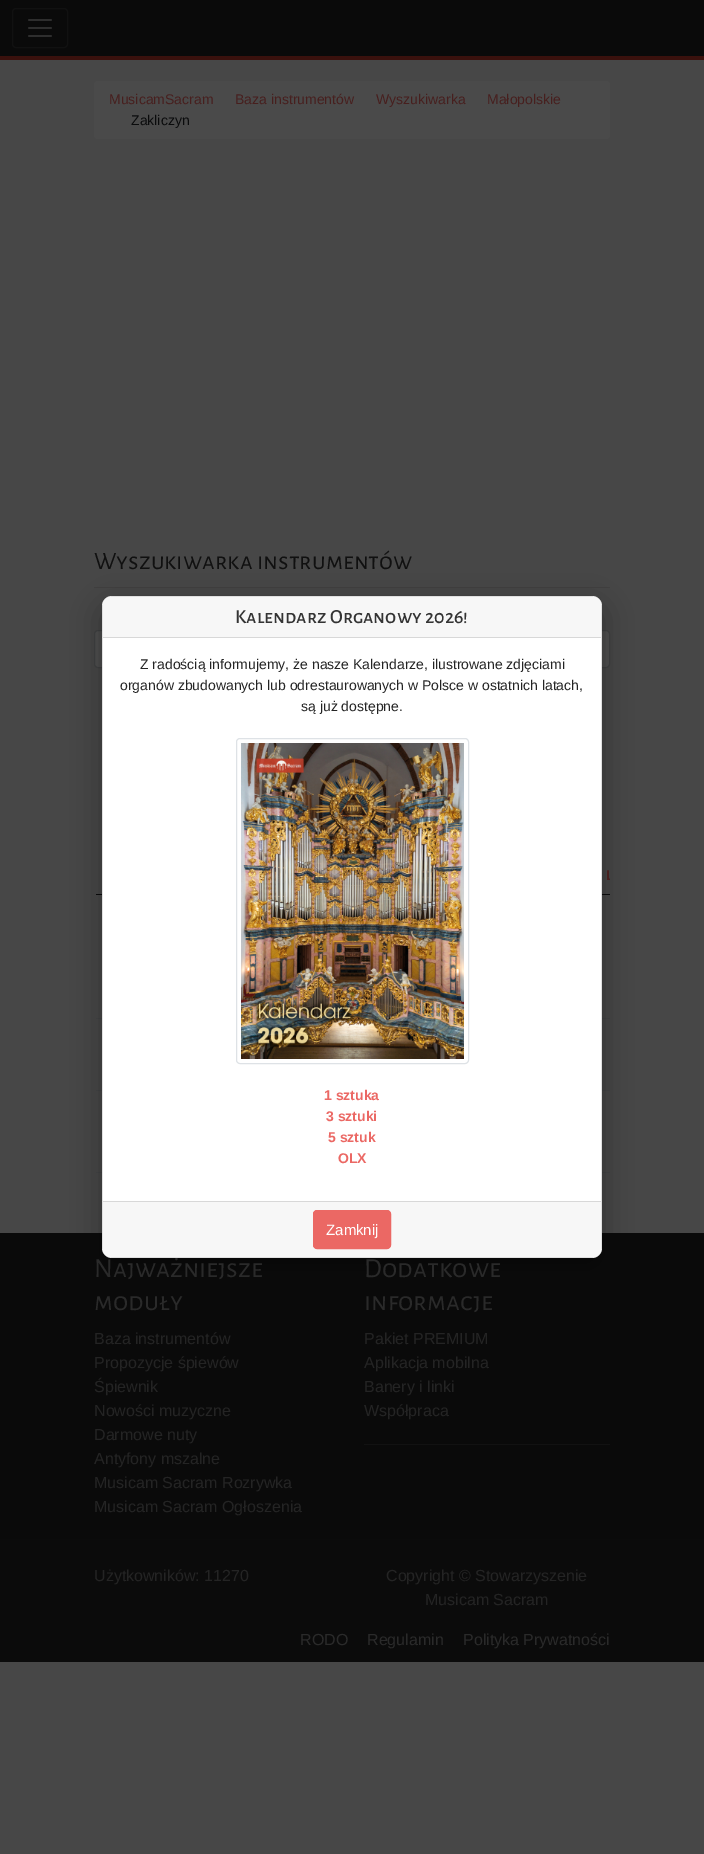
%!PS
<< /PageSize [704 1854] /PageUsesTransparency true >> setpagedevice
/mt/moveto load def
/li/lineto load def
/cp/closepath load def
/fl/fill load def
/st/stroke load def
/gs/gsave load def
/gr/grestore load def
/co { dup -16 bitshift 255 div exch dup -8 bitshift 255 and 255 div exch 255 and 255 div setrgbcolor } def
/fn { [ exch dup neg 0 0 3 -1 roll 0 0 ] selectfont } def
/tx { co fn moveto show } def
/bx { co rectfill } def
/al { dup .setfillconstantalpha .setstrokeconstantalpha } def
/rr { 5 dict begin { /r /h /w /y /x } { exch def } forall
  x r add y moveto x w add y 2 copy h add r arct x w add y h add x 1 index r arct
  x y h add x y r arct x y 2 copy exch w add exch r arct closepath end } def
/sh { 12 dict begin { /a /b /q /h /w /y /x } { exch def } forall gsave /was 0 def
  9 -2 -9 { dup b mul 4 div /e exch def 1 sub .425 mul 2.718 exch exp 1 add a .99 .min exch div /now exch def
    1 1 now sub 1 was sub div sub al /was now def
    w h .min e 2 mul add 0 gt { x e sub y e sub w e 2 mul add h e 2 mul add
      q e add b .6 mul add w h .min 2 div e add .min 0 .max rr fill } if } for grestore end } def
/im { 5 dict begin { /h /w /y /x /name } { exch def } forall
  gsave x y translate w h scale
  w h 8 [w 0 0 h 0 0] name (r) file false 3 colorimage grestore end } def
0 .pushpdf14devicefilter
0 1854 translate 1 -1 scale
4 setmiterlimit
0 0 704 1854 16#474747 bx
0 0 704 56 16#0A0A0A bx
0 56 704 4 16#3A110D bx
16#111111 co
12.5 8.5 55 39 3.5 rr st
(media/1.raw) 28 19 24 18 im
16#4A4A4A co
94 81 516 58 4 rr fl
94 587 516 1 16#414040 bx
16#4D4D4D co
94.5 630.5 515 37 3.5 rr gs fl gr
16#3E4041 co
st
598 894 12 1 16#0A0B0C bx
96 894 6 1 16#0A0B0C bx
96 1018 6 1 16#434445 bx
598 1018 12 1 16#434445 bx
96 1090 6 1 16#434445 bx
598 1090 12 1 16#434445 bx
96 1172 6 1 16#434445 bx
598 1172 12 1 16#434445 bx
0 1233 704 306 16#0A0A0A bx
16#000000 co
102 606 500 662 10 15 .3 sh
364 1444 246 1 16#121212 bx
0 1539 704 123 16#0B0B0B bx
(MusicamSacram) 109 104 /LiberationSans-Regular 14 16#471F1E tx
(Baza instrumentów) 235 104 /LiberationSans-Regular 14 16#471F1E tx
(Wyszukiwarka) 376 104 /LiberationSans-Regular 14 16#471F1E tx
(Małopolskie) 487 104 /LiberationSans-Regular 14 16#471F1E tx
(Zakliczyn) 131 125 /LiberationSans-Regular 14 16#0A0B0C tx
(Wyszukiwarka instrumentów) 94 569 /AlegreyaSansSC-Regular 25 16#101010 tx
gs
94 855 516 336 rectclip
(L) 606 880 /LiberationSans-Bold 14 16#471F1E tx
gr
(Najważniejsze) 94 1277 /AlegreyaSansSC-Regular 27.5 16#2A2A2A tx
16#FFFFFF co
102 596 500 662 10 rr fl
0.12 al
16#000000 co
102 606 mt 102 1248 li 103 1252 li 103 602 li cp 112 596 mt 108 597 li 596 597 li 592 596 li cp 602 606 mt 601 602 li 601 1252 li 602 1248 li cp 592 1258 mt 596 1257 li 108 1257 li 112 1258 li cp eofill
0.03 al
103 1202 498 55 16#000000 bx
1 al
16#EB6864 co
313.5 1210.5 77 38 3.5 rr gs fl gr
st
(Zamknij) 326 1235 /LiberationSans-Regular 15 16#FFFFFF tx
103 1201 498 1 16#D8D8D8 bx
(OLX) 338 1163 /LiberationSans-Bold 14 16#EB6864 tx
(5 sztuk) 328 1142 /LiberationSans-Bold 14 16#EB6864 tx
(3 sztuki) 326 1121 /LiberationSans-Bold 14 16#EB6864 tx
(1 sztuka) 324 1100 /LiberationSans-Bold 14 16#EB6864 tx
16#DEE2E6 co
236.5 738.5 232 325 3.5 rr st
(media/2.raw) 241 743 223 316 im
(są już dostępne.) 301 711 /LiberationSans-Regular 14 16#242424 tx
(organów zbudowanych lub odrestaurowanych w Polsce w ostatnich latach,) 120 690 /LiberationSans-Regular 14 16#242424 tx
(Z radością informujemy, że nasze Kalendarze, ilustrowane zdjęciami) 140 669 /LiberationSans-Regular 14 16#242424 tx
0.03 al
103 597 498 40 16#000000 bx
1 al
(Kalendarz Organowy 2026!) 235 623 /AlegreyaSansSC-Medium 20 16#343434 tx
103 637 498 1 16#D8D8D8 bx
(moduły) 94 1310 /AlegreyaSansSC-Regular 27.5 16#2A2A2A tx
(Baza instrumentów) 94 1344 /LiberationSans-Regular 16 16#242424 tx
(Propozycje śpiewów) 94 1368 /LiberationSans-Regular 16 16#242424 tx
(Śpiewnik) 94 1392 /LiberationSans-Regular 16 16#242424 tx
(Nowości muzyczne) 94 1416 /LiberationSans-Regular 16 16#242424 tx
(Darmowe nuty) 94 1440 /LiberationSans-Regular 16 16#242424 tx
(Antyfony mszalne) 94 1464 /LiberationSans-Regular 16 16#242424 tx
(Musicam Sacram Rozrywka) 94 1488 /LiberationSans-Regular 16 16#242424 tx
(Musicam Sacram Ogłoszenia) 94 1512 /LiberationSans-Regular 16 16#242424 tx
(Dodatkowe) 364 1277 /AlegreyaSansSC-Regular 27.5 16#2A2A2A tx
(informacje) 364 1310 /AlegreyaSansSC-Regular 27.5 16#2A2A2A tx
(Pakiet PREMIUM) 364 1344 /LiberationSans-Regular 16 16#242424 tx
(Aplikacja mobilna) 364 1368 /LiberationSans-Regular 16 16#242424 tx
(Banery i linki) 364 1392 /LiberationSans-Regular 16 16#242424 tx
(Współpraca) 364 1416 /LiberationSans-Regular 16 16#242424 tx
(Użytkowników: 11270) 94 1581 /LiberationSans-Regular 16 16#242424 tx
(Copyright © Stowarzyszenie) 386 1581 /LiberationSans-Regular 16 16#242424 tx
(Musicam Sacram) 425 1605 /LiberationSans-Regular 16 16#242424 tx
(RODO) 300 1645 /LiberationSans-Regular 16 16#2A2A2A tx
(Regulamin) 367 1645 /LiberationSans-Regular 16 16#2A2A2A tx
(Polityka Prywatności) 463 1645 /LiberationSans-Regular 16 16#2A2A2A tx
.poppdf14devicefilter showpage
